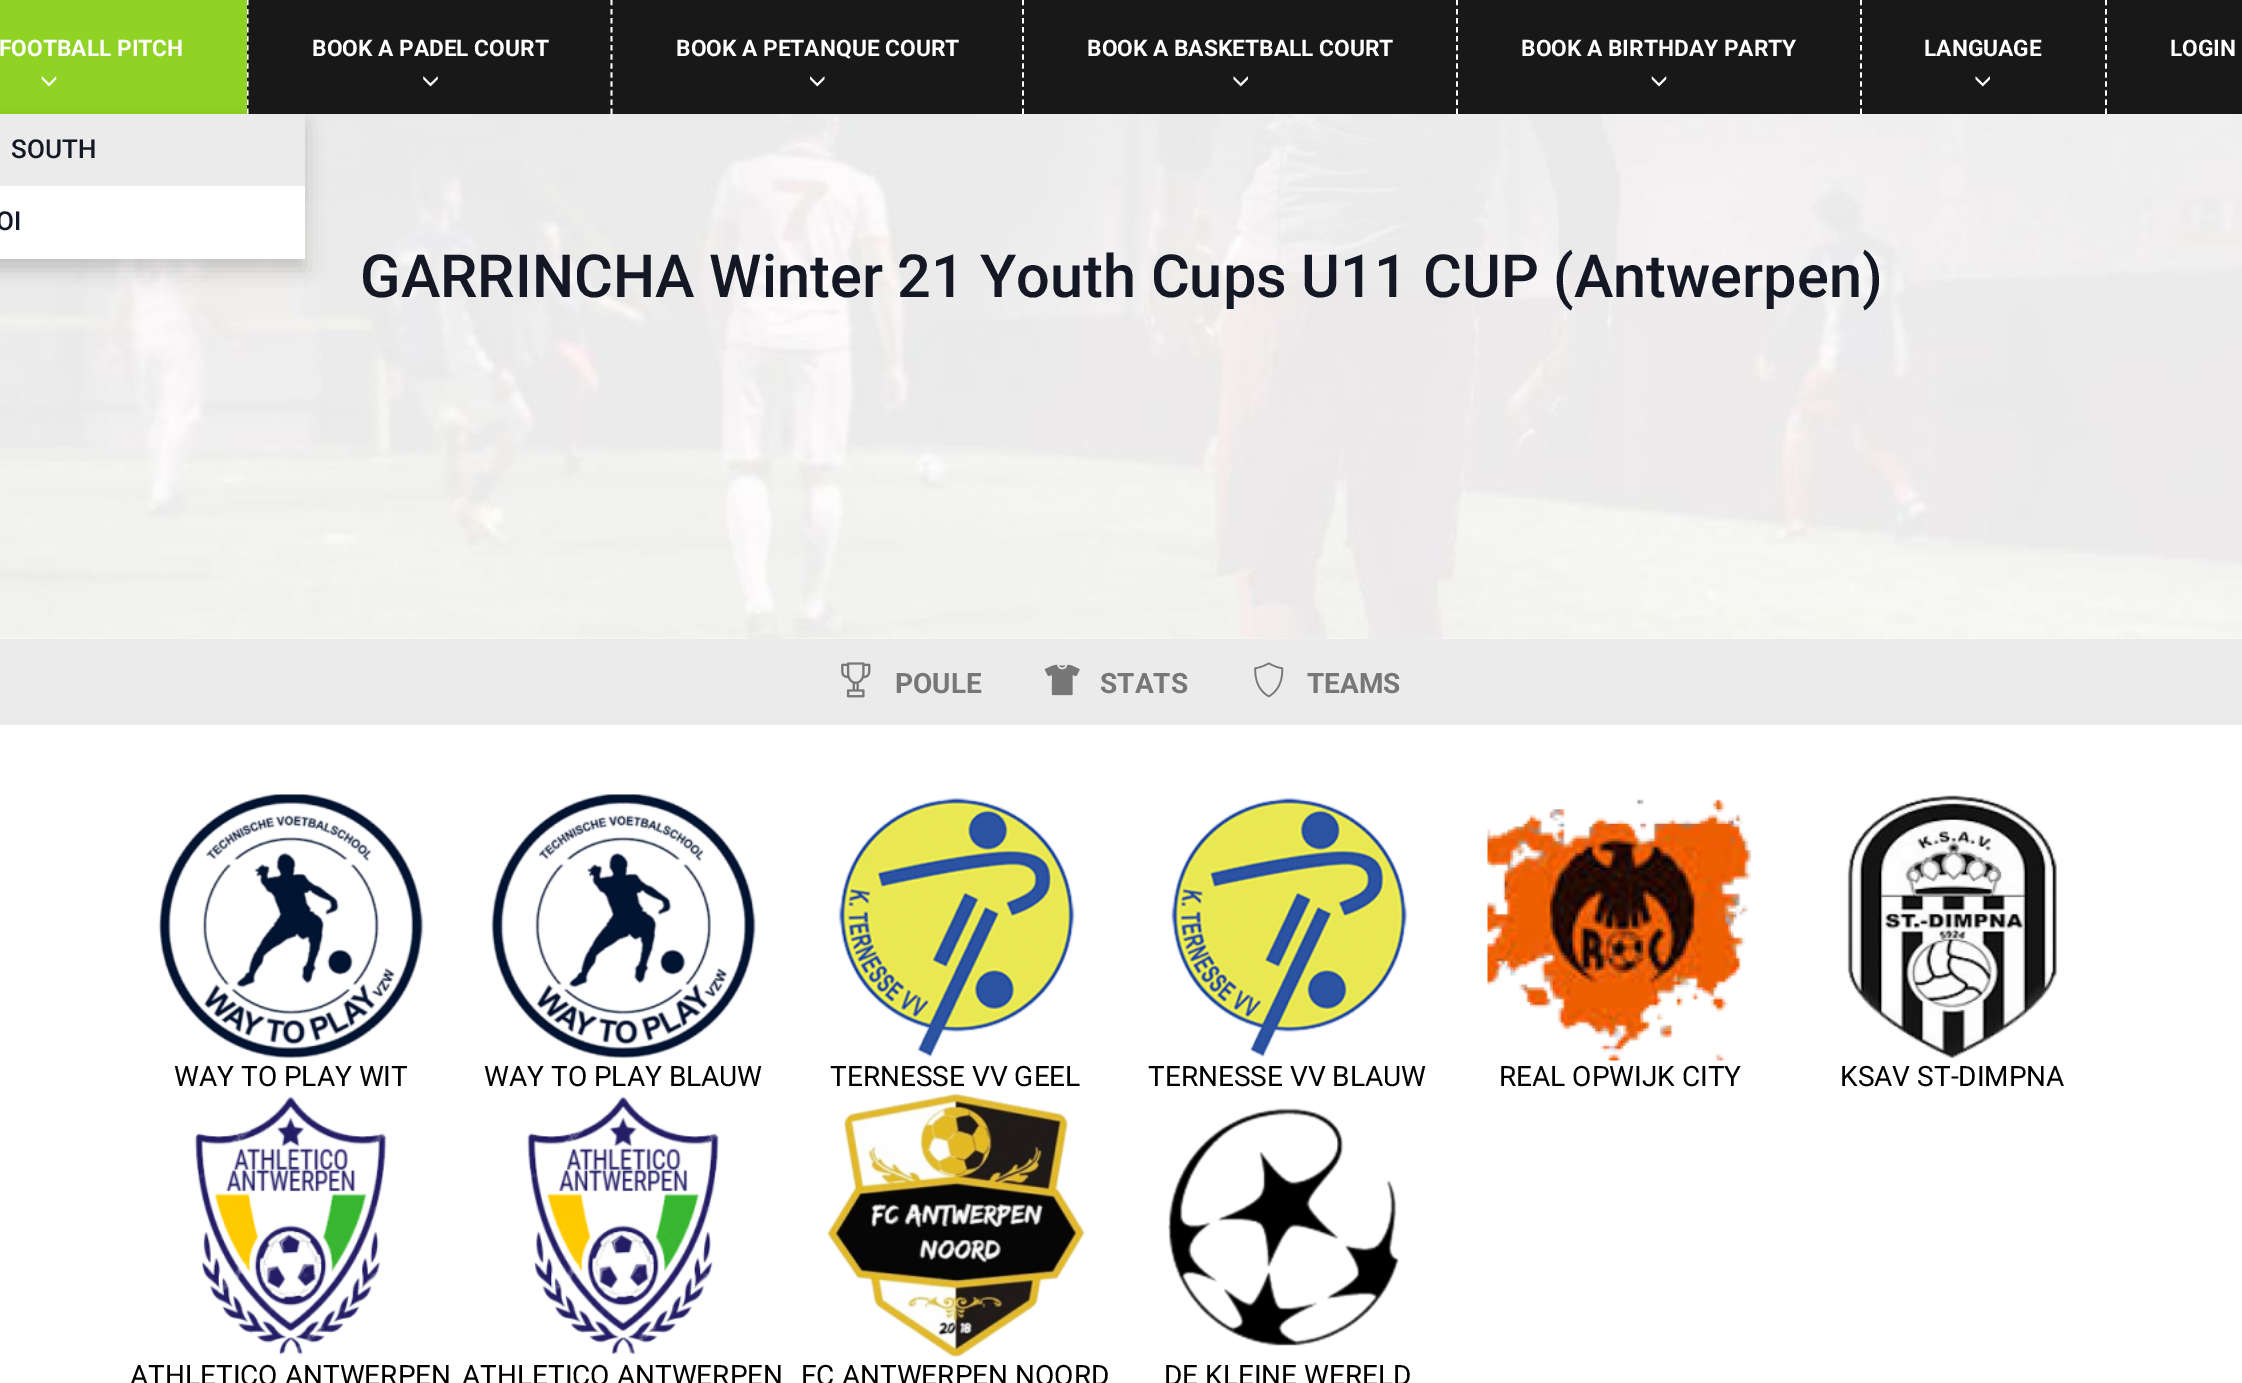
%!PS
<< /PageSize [2242 1383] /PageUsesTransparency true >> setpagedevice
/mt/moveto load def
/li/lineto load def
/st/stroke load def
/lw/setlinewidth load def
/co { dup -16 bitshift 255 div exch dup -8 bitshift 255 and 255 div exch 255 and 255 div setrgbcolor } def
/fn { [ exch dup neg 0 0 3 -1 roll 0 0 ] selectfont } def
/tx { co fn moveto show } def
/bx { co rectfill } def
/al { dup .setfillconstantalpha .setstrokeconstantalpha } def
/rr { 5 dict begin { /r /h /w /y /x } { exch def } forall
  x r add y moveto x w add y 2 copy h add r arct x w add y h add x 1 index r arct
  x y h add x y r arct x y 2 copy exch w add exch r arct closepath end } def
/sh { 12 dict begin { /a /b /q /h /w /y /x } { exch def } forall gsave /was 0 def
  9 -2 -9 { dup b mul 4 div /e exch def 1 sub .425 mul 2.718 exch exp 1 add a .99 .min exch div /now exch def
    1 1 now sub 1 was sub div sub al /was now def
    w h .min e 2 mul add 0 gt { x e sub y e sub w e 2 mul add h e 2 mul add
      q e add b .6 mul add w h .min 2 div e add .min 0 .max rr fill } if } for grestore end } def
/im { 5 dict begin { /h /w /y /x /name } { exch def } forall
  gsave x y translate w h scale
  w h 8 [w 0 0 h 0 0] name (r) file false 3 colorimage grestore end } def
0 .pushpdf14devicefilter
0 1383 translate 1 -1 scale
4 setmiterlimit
0 0 2242 1383 16#FFFFFF bx
247 0 1995 114 16#181818 bx
16#FFFFFF co
1.8 lw
[5.25 3.8] 0 setdash
247.5 0 mt 247.5 114 li st
0 0 247 114 16#90D324 bx
(media/1.raw) 41 76 16 11 im
(media/6.raw) 0 114 2242 525 im
16#000000 co
-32 124 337 146 0 10.5 .18 sh
0 114 305 72 16#EBEBEB bx
0 186 305 73 16#FFFFFF bx
611.5 0 mt 611.5 114 li st
(media/2.raw) 423 76 15 11 im
1023 0 mt 1023 114 li st
(media/3.raw) 810 76 15 11 im
1457 0 mt 1457 114 li st
(media/4.raw) 1233 76 15 11 im
1861 0 mt 1861 114 li st
(media/5.raw) 1651 76 16 11 im
2106 0 mt 2106 114 li st
(media/4.raw) 1975 76 15 11 im
0 639 2242 86 16#EBEBEB bx
(media/7.raw) 841 662 30 36 im
(media/8.raw) 1044 664 36 32 im
(media/9.raw) 1254 662 30 36 im
(media/10.raw) 158 794 266 265 im
(media/11.raw) 491 794 265 265 im
(media/12.raw) 838 797 238 260 im
(media/13.raw) 1171 797 237 260 im
(media/14.raw) 1487 799 265 262 im
(media/15.raw) 1847 795 210 264 im
(media/16.raw) 194 1096 193 259 im
(media/17.raw) 527 1096 192 259 im
(media/18.raw) 826 1093 259 265 im
(media/19.raw) 1168 1108 231 238 im
(FOOTBALL PITCH) -1 56 /Roboto-Bold 22.75 16#FFFFFF tx
(SOUTH) 11 158 /Roboto-Medium 26 16#141824 tx
(OI) -4 230 /Roboto-Medium 26 16#141824 tx
(BOOK A PADEL COURT) 312 56 /Roboto-Bold 22.75 16#FFFFFF tx
(BOOK A PETANQUE COURT) 676 56 /Roboto-Bold 22.75 16#FFFFFF tx
(BOOK A BASKETBALL COURT) 1087 56 /Roboto-Bold 22.75 16#FFFFFF tx
(BOOK A BIRTHDAY PARTY) 1521 56 /Roboto-Bold 22.75 16#FFFFFF tx
(LANGUAGE) 1924 56 /Roboto-Bold 22.75 16#FFFFFF tx
(LOGIN) 2170 56 /Roboto-Bold 22.75 16#FFFFFF tx
(GARRINCHA Winter 21 Youth Cups U11 CUP \(Antwerpen\)) 360 297 /Roboto-Medium 59.5 16#141824 tx
(POULE) 895 693 /Roboto-Bold 28 16#777777 tx
(STATS) 1100 693 /Roboto-Bold 28 16#777777 tx
(TEAMS) 1307 693 /Roboto-Bold 28 16#777777 tx
(WAY TO PLAY WIT) 174 1086 /Roboto-Regular 28 16#000000 tx
(WAY TO PLAY BLAUW) 484 1086 /Roboto-Regular 28 16#000000 tx
(TERNESSE VV GEEL) 830 1086 /Roboto-Regular 28 16#000000 tx
(TERNESSE VV BLAUW) 1148 1086 /Roboto-Regular 28 16#000000 tx
(REAL OPWIJK CITY) 1499 1086 /Roboto-Regular 28 16#000000 tx
(KSAV ST-DIMPNA) 1840 1086 /Roboto-Regular 28 16#000000 tx
(ATHLETICO ANTWERPEN) 130 1385 /Roboto-Regular 28 16#000000 tx
(ATHLETICO ANTWERPEN) 462 1385 /Roboto-Regular 28 16#000000 tx
(FC ANTWERPEN NOORD) 801 1385 /Roboto-Regular 28 16#000000 tx
(DE KLEINE WERELD) 1164 1385 /Roboto-Regular 28 16#000000 tx
.poppdf14devicefilter showpage
